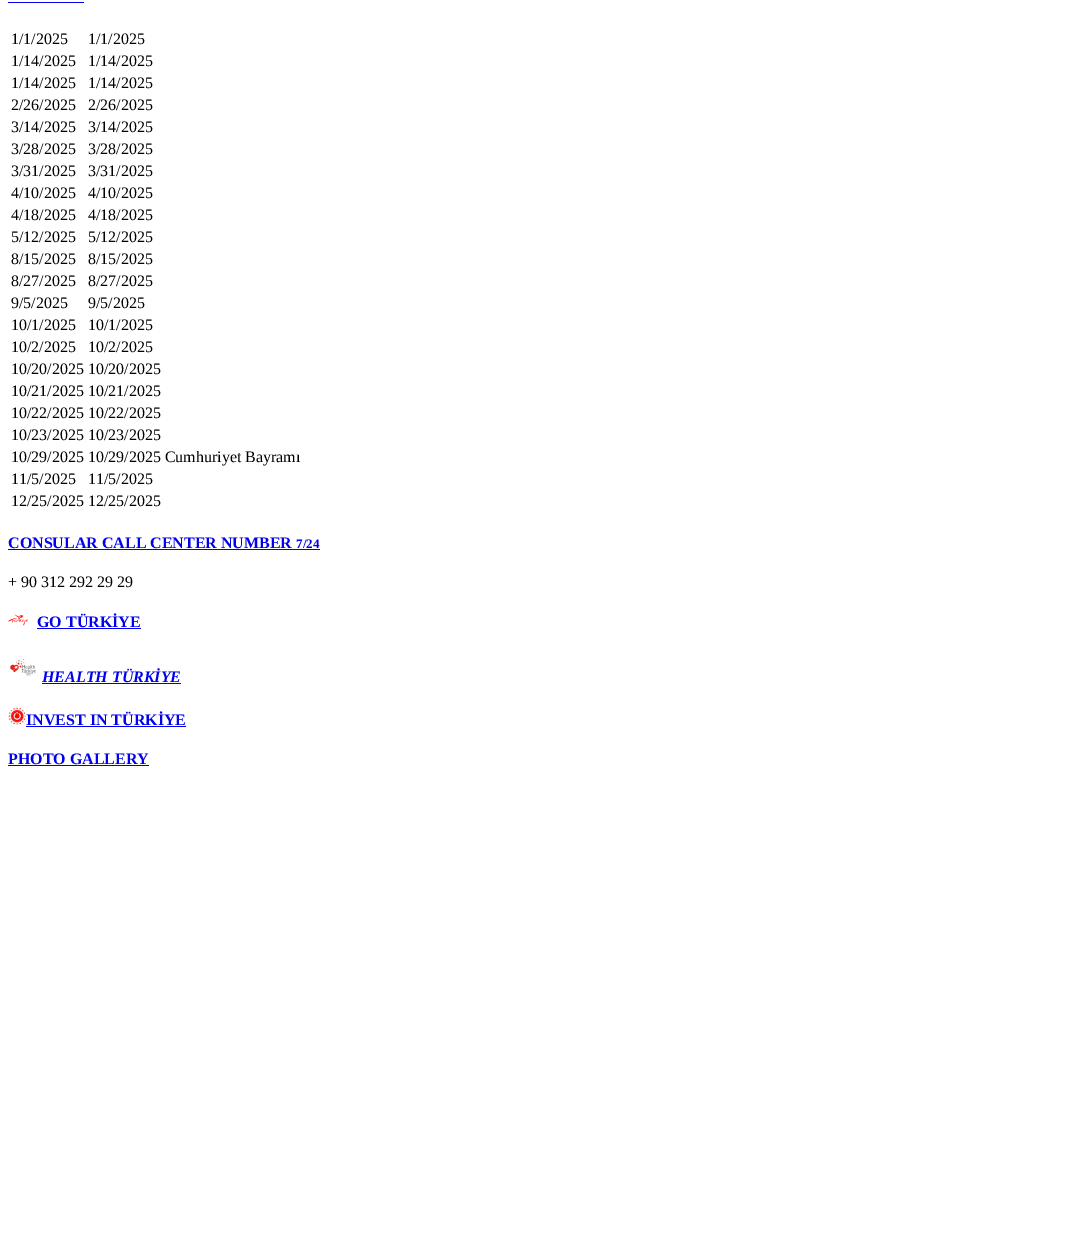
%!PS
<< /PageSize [1073 1245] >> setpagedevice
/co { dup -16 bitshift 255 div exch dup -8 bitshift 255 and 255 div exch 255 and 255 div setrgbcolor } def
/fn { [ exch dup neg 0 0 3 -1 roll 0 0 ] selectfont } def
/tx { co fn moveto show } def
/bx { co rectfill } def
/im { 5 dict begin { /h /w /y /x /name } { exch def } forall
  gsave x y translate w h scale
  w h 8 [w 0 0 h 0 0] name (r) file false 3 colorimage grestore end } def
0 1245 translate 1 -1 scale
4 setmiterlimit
0 0 1073 1245 16#FFFFFF bx
8 2 76 1 16#0000EE bx
8 549 312 1 16#0000EE bx
(media/1.raw) 8 614 20 12 im
37 628 104 1 16#0000EE bx
(media/2.raw) 10 658 26 18 im
42 683 139 1 16#0000EE bx
(media/3.raw) 8 707 18 18 im
26 726 160 1 16#0000EE bx
8 765 141 1 16#0000EE bx
(1/1/2025) 11 44 /LiberationSerif-Regular 16 16#000000 tx
(1/1/2025) 88 44 /LiberationSerif-Regular 16 16#000000 tx
(1/14/2025) 11 66 /LiberationSerif-Regular 16 16#000000 tx
(1/14/2025) 88 66 /LiberationSerif-Regular 16 16#000000 tx
(1/14/2025) 11 88 /LiberationSerif-Regular 16 16#000000 tx
(1/14/2025) 88 88 /LiberationSerif-Regular 16 16#000000 tx
(2/26/2025) 11 110 /LiberationSerif-Regular 16 16#000000 tx
(2/26/2025) 88 110 /LiberationSerif-Regular 16 16#000000 tx
(3/14/2025) 11 132 /LiberationSerif-Regular 16 16#000000 tx
(3/14/2025) 88 132 /LiberationSerif-Regular 16 16#000000 tx
(3/28/2025) 11 154 /LiberationSerif-Regular 16 16#000000 tx
(3/28/2025) 88 154 /LiberationSerif-Regular 16 16#000000 tx
(3/31/2025) 11 176 /LiberationSerif-Regular 16 16#000000 tx
(3/31/2025) 88 176 /LiberationSerif-Regular 16 16#000000 tx
(4/10/2025) 11 198 /LiberationSerif-Regular 16 16#000000 tx
(4/10/2025) 88 198 /LiberationSerif-Regular 16 16#000000 tx
(4/18/2025) 11 220 /LiberationSerif-Regular 16 16#000000 tx
(4/18/2025) 88 220 /LiberationSerif-Regular 16 16#000000 tx
(5/12/2025) 11 242 /LiberationSerif-Regular 16 16#000000 tx
(5/12/2025) 88 242 /LiberationSerif-Regular 16 16#000000 tx
(8/15/2025) 11 264 /LiberationSerif-Regular 16 16#000000 tx
(8/15/2025) 88 264 /LiberationSerif-Regular 16 16#000000 tx
(8/27/2025) 11 286 /LiberationSerif-Regular 16 16#000000 tx
(8/27/2025) 88 286 /LiberationSerif-Regular 16 16#000000 tx
(9/5/2025) 11 308 /LiberationSerif-Regular 16 16#000000 tx
(9/5/2025) 88 308 /LiberationSerif-Regular 16 16#000000 tx
(10/1/2025) 11 330 /LiberationSerif-Regular 16 16#000000 tx
(10/1/2025) 88 330 /LiberationSerif-Regular 16 16#000000 tx
(10/2/2025) 11 352 /LiberationSerif-Regular 16 16#000000 tx
(10/2/2025) 88 352 /LiberationSerif-Regular 16 16#000000 tx
(10/20/2025 10/20/2025) 11 374 /LiberationSerif-Regular 16 16#000000 tx
(10/21/2025 10/21/2025) 11 396 /LiberationSerif-Regular 16 16#000000 tx
(10/22/2025 10/22/2025) 11 418 /LiberationSerif-Regular 16 16#000000 tx
(10/23/2025 10/23/2025) 11 440 /LiberationSerif-Regular 16 16#000000 tx
(10/29/2025 10/29/2025 Cumhuriyet Bayramı) 11 462 /LiberationSerif-Regular 16 16#000000 tx
(11/5/2025) 11 484 /LiberationSerif-Regular 16 16#000000 tx
(11/5/2025) 88 484 /LiberationSerif-Regular 16 16#000000 tx
(12/25/2025 12/25/2025) 11 506 /LiberationSerif-Regular 16 16#000000 tx
(CONSULAR CALL CENTER NUMBER) 8 548 /LiberationSerif-Bold 16 16#0000EE tx
(7/24) 296 548 /LiberationSerif-Bold 13 16#0000EE tx
(+ 90 312 292 29 29) 8 587 /LiberationSerif-Regular 16 16#000000 tx
(GO TÜRKİYE) 37 627 /LiberationSerif-Bold 16 16#0000EE tx
(HEALTH TÜRKİYE) 42 682 /LiberationSerif-BoldItalic 16 16#0000EE tx
(INVEST IN TÜRKİYE) 26 725 /LiberationSerif-Bold 16 16#0000EE tx
(PHOTO GALLERY) 8 764 /LiberationSerif-Bold 16 16#0000EE tx
showpage
